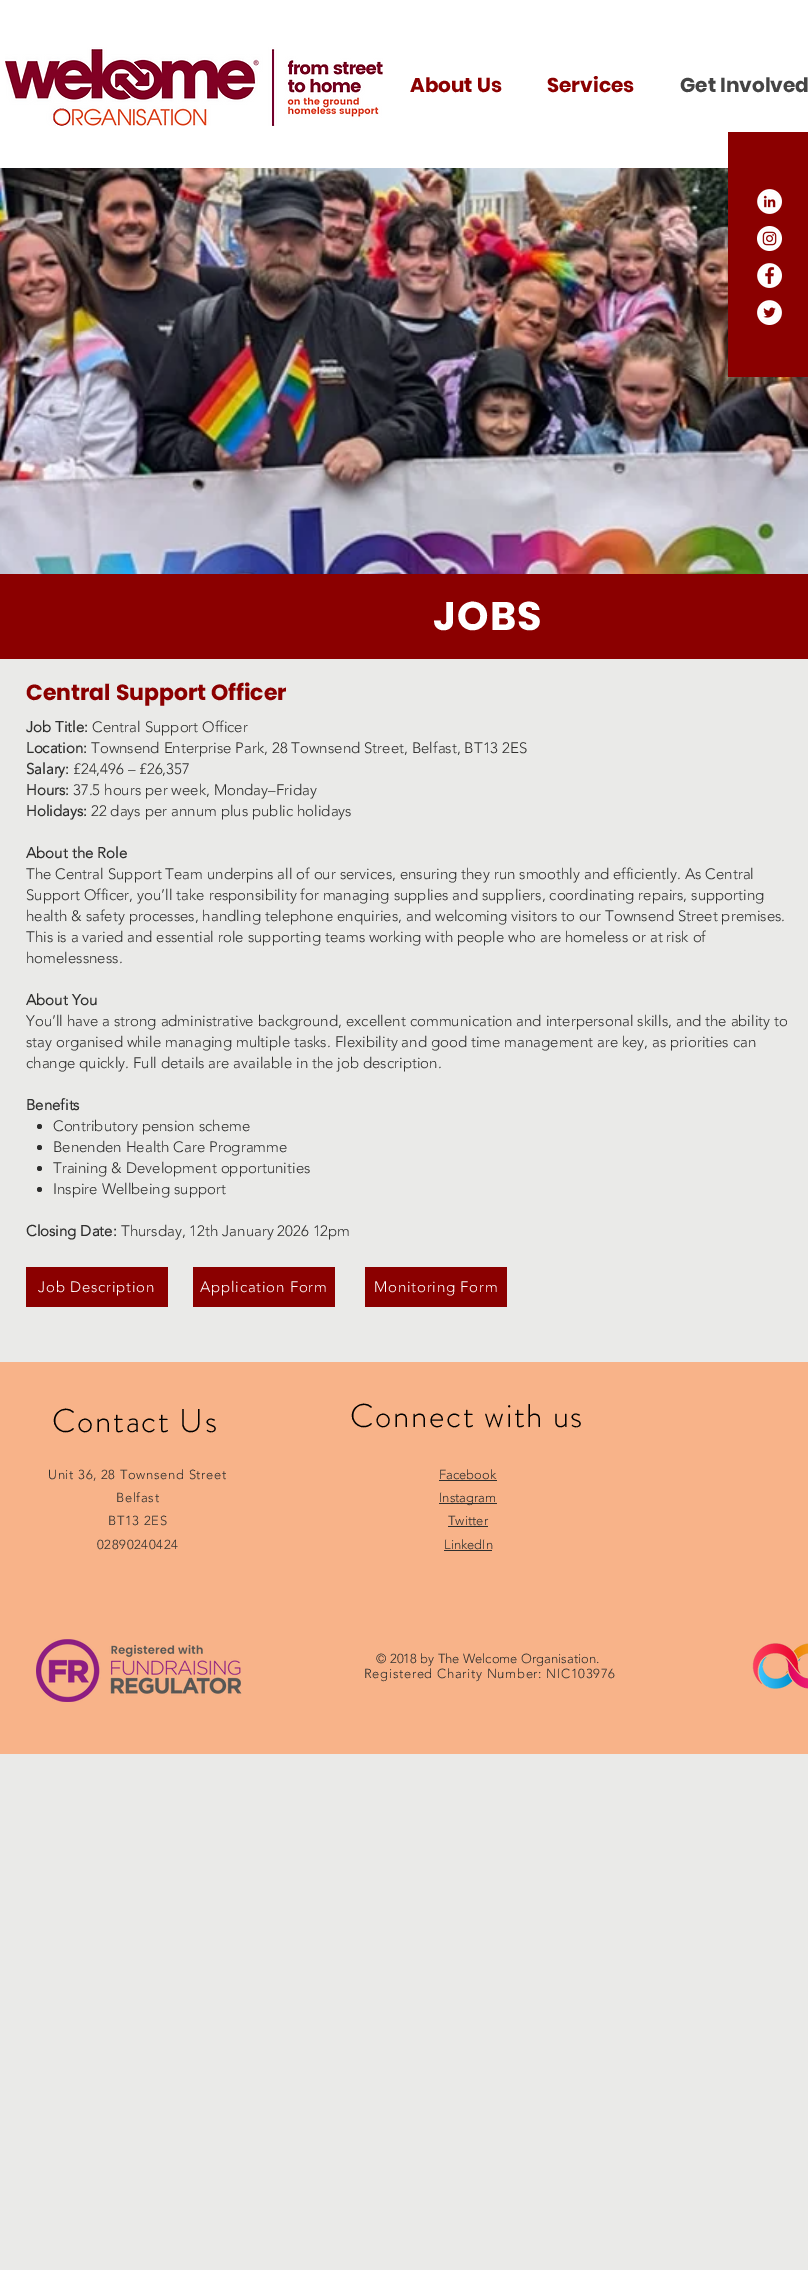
%!PS
<< /PageSize [808 2270] >> setpagedevice
/mt/moveto load def
/fl/fill load def
/co { dup -16 bitshift 255 div exch dup -8 bitshift 255 and 255 div exch 255 and 255 div setrgbcolor } def
/fn { [ exch dup neg 0 0 3 -1 roll 0 0 ] selectfont } def
/tx { co fn moveto show } def
/bx { co rectfill } def
/ci { newpath 0 360 arc closepath } def
/im { 5 dict begin { /h /w /y /x /name } { exch def } forall
  gsave x y translate w h scale
  w h 8 [w 0 0 h 0 0] name (r) file false 3 colorimage grestore end } def
0 2270 translate 1 -1 scale
4 setmiterlimit
0 0 808 2270 16#EAEAE8 bx
0 0 808 168 16#FFFFFF bx
(media/1.raw) 5 47 378 79 im
(media/6.raw) 0 168 808 406 im
728 132 80 245 16#8B0000 bx
(media/2.raw) 757 189 25 25 im
(media/3.raw) 757 226 25 25 im
(media/4.raw) 757 263 25 25 im
(media/5.raw) 757 300 25 25 im
0 574 808 85 16#8B0000 bx
16#2F2F2E co
39.5 1126.5 2.5 ci fl
39.5 1147.5 2.5 ci fl
39.5 1168.5 2.5 ci fl
39.5 1189.5 2.5 ci fl
26 1267 142 40 16#8B0000 bx
193 1267 142 40 16#8B0000 bx
365 1267 142 40 16#8B0000 bx
0 1362 808 392 16#F8B389 bx
439 1480 58 1 16#2F2F2E bx
439 1503 58 1 16#2F2F2E bx
448 1526 40 1 16#2F2F2E bx
444 1550 48 1 16#2F2F2E bx
(media/7.raw) 36 1639 206 63 im
(media/8.raw) 752 1643 56 46 im
(About Us) 410 92 /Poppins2-Bold 20 16#8B0000 tx
(Services) 547 92 /Poppins2-Bold 20 16#8B0000 tx
(Get Involved) 680 92 /Poppins2-Bold 20 16#444444 tx
/Poppins-Bold 40 fn
16#FFFFFF co
433 630 mt 1 0 (JOBS) ashow
(Central Support Officer) 26 700 /Poppins-Bold 22 16#8B0000 tx
(Job Title:) 26 732 /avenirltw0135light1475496-Bold 15 16#2F2F2E tx
(Central Support Officer) 92 732 /avenirltw0135light1475496-Light 15 16#2F2F2E tx
(Location:) 26 753 /avenirltw0135light1475496-Bold 15 16#2F2F2E tx
(Townsend Enterprise Park, 28 Townsend Street, Belfast, BT13 2ES) 91 753 /avenirltw0135light1475496-Light 15 16#2F2F2E tx
(Salary:) 26 774 /avenirltw0135light1475496-Bold 15 16#2F2F2E tx
(£24,496 – £26,357) 73 774 /avenirltw0135light1475496-Light 15 16#2F2F2E tx
(Hours:) 26 795 /avenirltw0135light1475496-Bold 15 16#2F2F2E tx
(37.5 hours per week, Monday–Friday) 73 795 /avenirltw0135light1475496-Light 15 16#2F2F2E tx
(Holidays:) 26 816 /avenirltw0135light1475496-Bold 15 16#2F2F2E tx
(22 days per annum plus public holidays) 91 816 /avenirltw0135light1475496-Light 15 16#2F2F2E tx
(About the Role) 26 858 /avenirltw0135light1475496-Bold 15 16#2F2F2E tx
(The Central Support Team underpins all of our services, ensuring they run smoothly and efficiently. As Central) 26 879 /avenirltw0135light1475496-Light 15 16#2F2F2E tx
(Support Officer, you’ll take responsibility for managing supplies and suppliers, coordinating repairs, supporting) 26 900 /avenirltw0135light1475496-Light 15 16#2F2F2E tx
(health & safety processes, handling telephone enquiries, and welcoming visitors to our Townsend Street premises.) 26 921 /avenirltw0135light1475496-Light 15 16#2F2F2E tx
(This is a varied and essential role supporting teams working with people who are homeless or at risk of) 26 942 /avenirltw0135light1475496-Light 15 16#2F2F2E tx
(homelessness.) 26 963 /avenirltw0135light1475496-Light 15 16#2F2F2E tx
(About You) 26 1005 /avenirltw0135light1475496-Bold 15 16#2F2F2E tx
(You’ll have a strong administrative background, excellent communication and interpersonal skills, and the ability to) 26 1026 /avenirltw0135light1475496-Light 15 16#2F2F2E tx
(stay organised while managing multiple tasks. Flexibility and good time management are key, as priorities can) 26 1047 /avenirltw0135light1475496-Light 15 16#2F2F2E tx
(change quickly. Full details are available in the job description.) 26 1068 /avenirltw0135light1475496-Light 15 16#2F2F2E tx
(Benefits) 26 1110 /avenirltw0135light1475496-Bold 15 16#2F2F2E tx
(Contributory pension scheme) 53 1131 /avenirltw0135light1475496-Light 15 16#2F2F2E tx
(Benenden Health Care Programme) 53 1152 /avenirltw0135light1475496-Light 15 16#2F2F2E tx
(Training & Development opportunities) 53 1173 /avenirltw0135light1475496-Light 15 16#2F2F2E tx
(Inspire Wellbeing support) 53 1194 /avenirltw0135light1475496-Light 15 16#2F2F2E tx
(Closing Date:) 26 1236 /avenirltw0135light1475496-Bold 15 16#2F2F2E tx
(Thursday, 12th January 2026 12pm) 121 1236 /avenirltw0135light1475496-Light 15 16#2F2F2E tx
16#FFFFFF co
38 1292 mt .75 0 (Job Description) ashow
200 1292 mt .75 0 (Application Form) ashow
374 1292 mt .75 0 (Monitoring Form) ashow
/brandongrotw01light-Light 33 fn
16#000000 co
52 1432 mt 1.6 0 (Contact Us) ashow
350 1427 mt 1.6 0 (Connect with us) ashow
/avenirltw0135light1475496-Light 13 fn
16#2F2F2E co
48 1479 mt .65 0 (Unit 36, 28 Townsend Street) ashow
116 1502 mt .65 0 (Belfast) ashow
108 1525 mt .65 0 (BT13 2ES) ashow
97 1549 mt .65 0 (02890240424) ashow
(Facebook) 439 1479 /avenirltw0135light1475496-Light 13 16#2F2F2E tx
(Instagram) 439 1502 /avenirltw0135light1475496-Light 13 16#2F2F2E tx
(Twitter) 448 1525 /avenirltw0135light1475496-Light 13 16#2F2F2E tx
(LinkedIn) 444 1549 /avenirltw0135light1475496-Light 13 16#2F2F2E tx
(© 2018 by The Welcome Organisation.) 376 1663 /avenirltw0135light1475496-Light 13 16#2F2F2E tx
364 1678 mt .65 0 (Registered Charity Number: NIC103976) ashow
showpage
